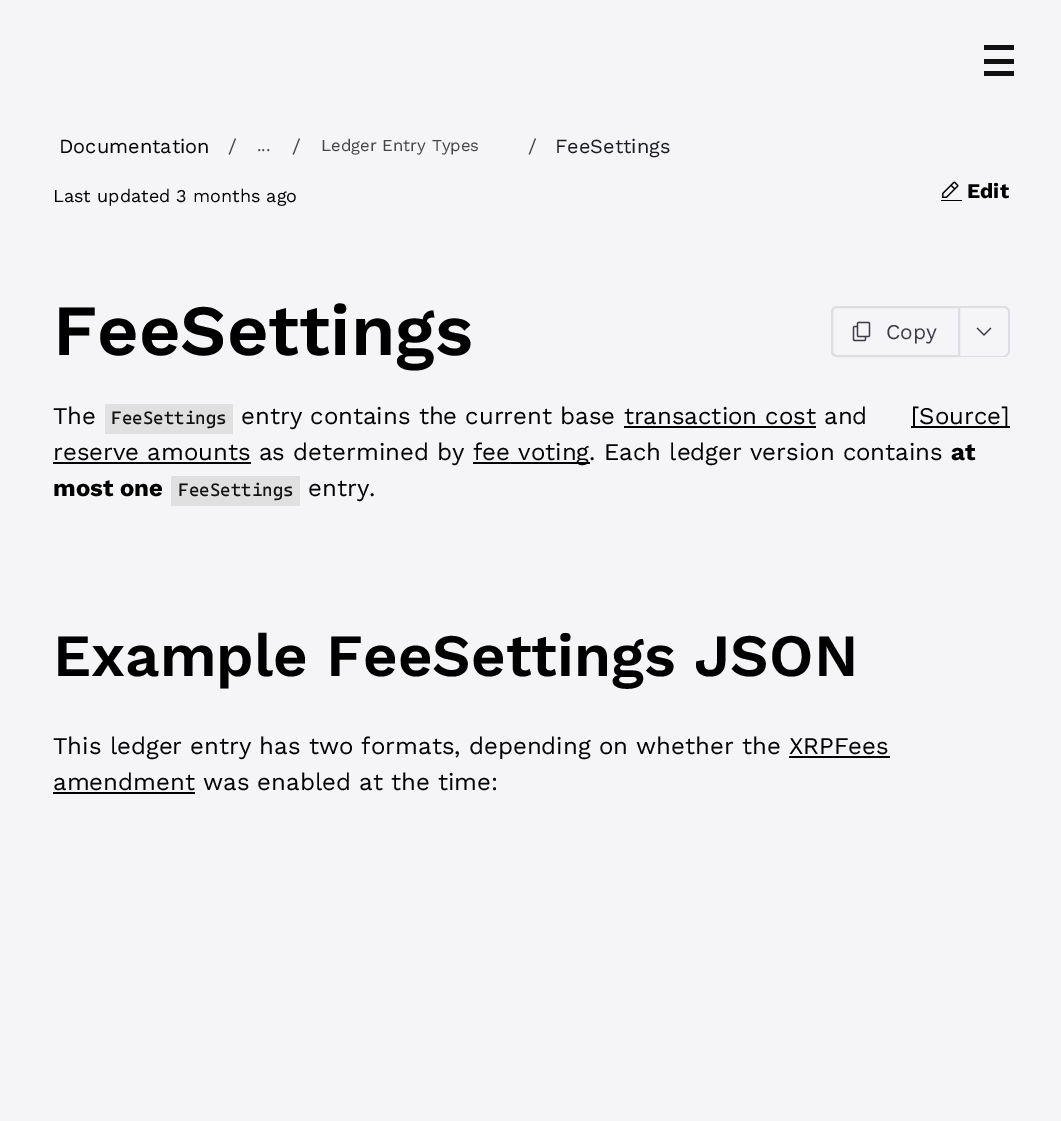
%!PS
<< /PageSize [1061 1121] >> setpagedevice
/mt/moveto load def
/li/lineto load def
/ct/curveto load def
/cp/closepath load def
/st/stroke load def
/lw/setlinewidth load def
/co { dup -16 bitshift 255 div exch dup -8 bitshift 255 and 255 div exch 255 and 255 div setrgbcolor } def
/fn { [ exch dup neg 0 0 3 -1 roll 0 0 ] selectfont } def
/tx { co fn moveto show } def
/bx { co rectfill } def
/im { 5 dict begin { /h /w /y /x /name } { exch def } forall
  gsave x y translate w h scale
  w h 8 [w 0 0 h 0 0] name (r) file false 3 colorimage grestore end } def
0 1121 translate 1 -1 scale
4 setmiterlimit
0 0 1061 1121 16#F5F5F7 bx
984 45 30 5 16#111112 bx
984 59 30 5 16#111112 bx
984 71 30 5 16#111112 bx
(media/1.raw) 941 181 21 20 im
16#DCDDE5 co
2 lw
837 307 mt 959 307 li 959 356 li 837 356 li 834 356 832 354 832 351 ct 832 312 li 832 309 834 307 837 307 ct cp st
(media/2.raw) 852 321 19 21 im
960 306 mt 1004 306 li 1007 306 1010 309 1010 312 ct 1010 351 li 1010 354 1007 357 1004 357 ct 960 357 li cp 960 308 mt 1004 308 li 1006 308 1008 310 1008 312 ct 1008 351 li 1008 353 1006 356 1004 356 ct 960 356 li cp eofill
(media/3.raw) 976 327 16 9 im
105 404 128 30 16#E0E0E1 bx
624 426 192 2 16#000000 bx
53 462 198 2 16#000000 bx
473 462 117 2 16#000000 bx
171 476 129 30 16#E0E0E1 bx
911 426 99 2 16#000000 bx
789 756 101 2 16#000000 bx
53 792 142 2 16#000000 bx
(Documentation) 59 153 /WorkSans-Regular 20 16#000000 tx
(/) 228 153 /WorkSans-Regular 20 16#454549 tx
(...) 257 151 /WorkSans-Regular 16.75 16#454549 tx
(/) 292 153 /WorkSans-Regular 20 16#454549 tx
(Ledger Entry Types) 321 151 /WorkSans-Regular 16.75 16#454549 tx
(/) 528 153 /WorkSans-Regular 20 16#454549 tx
(FeeSettings) 555 153 /WorkSans-Regular 20 16#1A1C21 tx
(Last updated 3 months ago) 53 202 /WorkSans-Regular 18 16#000000 tx
(Edit) 967 198 /WorkSans-Bold 21 16#000000 tx
(FeeSettings) 53 355 /WorkSans-SemiBold 72 16#000000 tx
(Copy) 886 339 /WorkSans-Regular 21 16#3B3C45 tx
(The) 53 424 /WorkSans-Regular 24 16#000000 tx
(FeeSettings) 111 424 /CascadiaMono-Regular 18 16#111112 tx
(entry contains the current base transaction cost and) 241 424 /WorkSans-Regular 24 16#000000 tx
(reserve amounts as determined by) 53 460 /WorkSans-Regular 24 16#000000 tx
(fee voting. Each ledger version contains) 473 460 /WorkSans-Regular 24 16#000000 tx
(at) 951 460 /WorkSans-Bold 24 16#000000 tx
(most one) 53 496 /WorkSans-Bold 24 16#000000 tx
(FeeSettings) 178 496 /CascadiaMono-Regular 18 16#111112 tx
(entry.) 308 496 /WorkSans-Regular 24 16#000000 tx
([Source]) 911 424 /WorkSans-Regular 24 16#000000 tx
(Example FeeSettings JSON) 53 676 /WorkSans-SemiBold 60 16#000000 tx
(This ledger entry has two formats, depending on whether the XRPFees) 53 754 /WorkSans-Regular 24 16#000000 tx
(amendment was enabled at the time:) 53 790 /WorkSans-Regular 24 16#000000 tx
showpage
